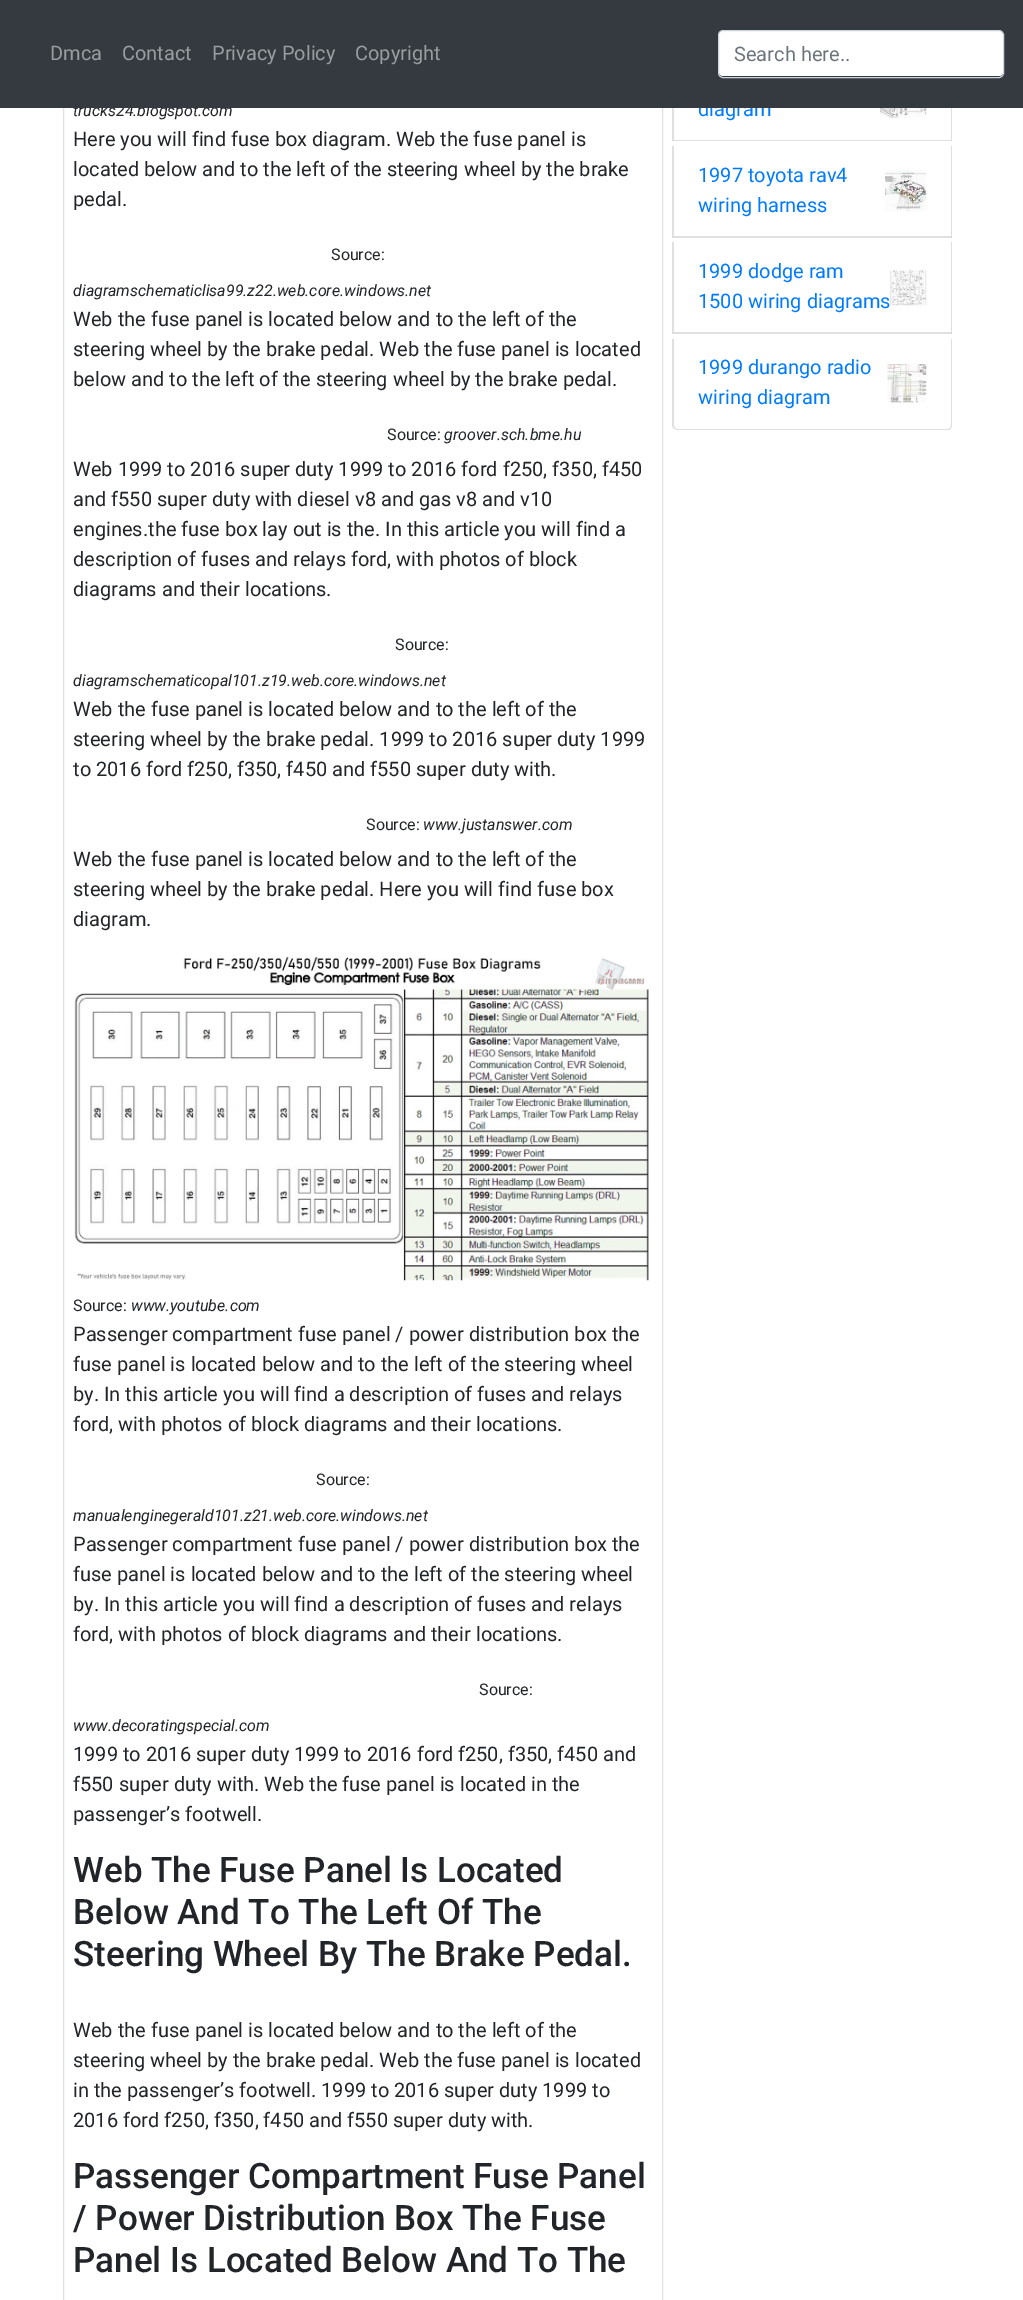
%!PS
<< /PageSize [1023 2300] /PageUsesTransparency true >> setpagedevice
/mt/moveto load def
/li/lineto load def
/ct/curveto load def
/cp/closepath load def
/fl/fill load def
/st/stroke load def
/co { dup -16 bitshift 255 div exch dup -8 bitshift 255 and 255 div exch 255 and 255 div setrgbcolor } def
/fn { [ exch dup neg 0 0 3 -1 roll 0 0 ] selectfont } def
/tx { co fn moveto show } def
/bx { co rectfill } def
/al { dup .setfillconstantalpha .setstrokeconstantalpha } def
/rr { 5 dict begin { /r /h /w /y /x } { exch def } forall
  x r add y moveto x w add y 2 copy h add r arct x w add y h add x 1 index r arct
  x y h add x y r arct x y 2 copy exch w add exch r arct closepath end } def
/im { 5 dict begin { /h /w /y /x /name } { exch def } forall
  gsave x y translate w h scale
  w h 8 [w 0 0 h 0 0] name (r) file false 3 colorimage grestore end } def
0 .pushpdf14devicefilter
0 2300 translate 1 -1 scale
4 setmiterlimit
0 0 1023 2300 16#FFFFFF bx
16#DEE2E6 co
63.5 -.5 599 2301 rectstroke
(media/1.raw) 74 957 575 324 im
16#DFDFDF co
952 50 mt 952 141 li 951 140 li 951 50 li cp fl
0.12 al
16#000000 co
952 141 mt 672 141 li 674 140 li 951 140 li cp fl
672 141 mt 672 50 li 674 50 li 674 140 li cp fl
1 al
(media/2.raw) 880 108 47 10 im
16#DFDFDF co
952 146 mt 952 238 li 951 236 li 951 146 li cp fl
0.12 al
16#000000 co
952 238 mt 672 238 li 674 236 li 951 236 li cp fl
672 238 mt 672 146 li 674 146 li 674 236 li cp fl
1 al
(media/3.raw) 885 170 42 42 im
16#DFDFDF co
952 242 mt 952 334 li 951 332 li 951 242 li cp fl
0.12 al
16#000000 co
952 334 mt 672 334 li 674 332 li 951 332 li cp fl
672 334 mt 672 242 li 674 242 li 674 332 li cp fl
1 al
(media/4.raw) 890 270 37 36 im
16#DFDFDF co
672 339 mt 952 339 li 952 425 li 952 428 950 430 948 430 ct 678 430 li 675 430 672 428 672 425 ct cp 674 339 mt 951 339 li 951 425 li 951 427 950 429 948 429 ct 678 429 li 675 429 674 427 674 425 ct cp eofill
(media/5.raw) 887 364 40 39 im
(trucks24.blogspot.com) 73 116 /Roboto-Italic 16 16#212529 tx
(Here you will find fuse box diagram. Web the fuse panel is) 73 146 /Roboto-Regular 20 16#212529 tx
(located below and to the left of the steering wheel by the brake) 73 176 /Roboto-Regular 20 16#212529 tx
(pedal.) 73 206 /Roboto-Regular 20 16#212529 tx
(Source:) 331 260 /Roboto-Regular 16 16#212529 tx
(diagramschematiclisa99.z22.web.core.windows.net) 73 296 /Roboto-Italic 16 16#212529 tx
(Web the fuse panel is located below and to the left of the) 73 326 /Roboto-Regular 20 16#212529 tx
(steering wheel by the brake pedal. Web the fuse panel is located) 73 356 /Roboto-Regular 20 16#212529 tx
(below and to the left of the steering wheel by the brake pedal.) 73 386 /Roboto-Regular 20 16#212529 tx
(Source:) 387 440 /Roboto-Regular 16 16#212529 tx
(groover.sch.bme.hu) 444 440 /Roboto-Italic 16 16#212529 tx
(Web 1999 to 2016 super duty 1999 to 2016 ford f250, f350, f450) 73 476 /Roboto-Regular 20 16#212529 tx
(and f550 super duty with diesel v8 and gas v8 and v10) 73 506 /Roboto-Regular 20 16#212529 tx
(engines.the fuse box lay out is the. In this article you will find a) 73 536 /Roboto-Regular 20 16#212529 tx
(description of fuses and relays ford, with photos of block) 73 566 /Roboto-Regular 20 16#212529 tx
(diagrams and their locations.) 73 596 /Roboto-Regular 20 16#212529 tx
(Source:) 395 650 /Roboto-Regular 16 16#212529 tx
(diagramschematicopal101.z19.web.core.windows.net) 73 686 /Roboto-Italic 16 16#212529 tx
(Web the fuse panel is located below and to the left of the) 73 716 /Roboto-Regular 20 16#212529 tx
(steering wheel by the brake pedal. 1999 to 2016 super duty 1999) 73 746 /Roboto-Regular 20 16#212529 tx
(to 2016 ford f250, f350, f450 and f550 super duty with.) 73 776 /Roboto-Regular 20 16#212529 tx
(Source:) 366 830 /Roboto-Regular 16 16#212529 tx
(www.justanswer.com) 423 830 /Roboto-Italic 16 16#212529 tx
(Web the fuse panel is located below and to the left of the) 73 866 /Roboto-Regular 20 16#212529 tx
(steering wheel by the brake pedal. Here you will find fuse box) 73 896 /Roboto-Regular 20 16#212529 tx
(diagram.) 73 926 /Roboto-Regular 20 16#212529 tx
(Source:) 73 1311 /Roboto-Regular 16 16#212529 tx
(www.youtube.com) 131 1311 /Roboto-Italic 16 16#212529 tx
(Passenger compartment fuse panel / power distribution box the) 73 1341 /Roboto-Regular 20 16#212529 tx
(fuse panel is located below and to the left of the steering wheel) 73 1371 /Roboto-Regular 20 16#212529 tx
(by. In this article you will find a description of fuses and relays) 73 1401 /Roboto-Regular 20 16#212529 tx
(ford, with photos of block diagrams and their locations.) 73 1431 /Roboto-Regular 20 16#212529 tx
(Source:) 316 1485 /Roboto-Regular 16 16#212529 tx
(manualenginegerald101.z21.web.core.windows.net) 73 1521 /Roboto-Italic 16 16#212529 tx
(Passenger compartment fuse panel / power distribution box the) 73 1551 /Roboto-Regular 20 16#212529 tx
(fuse panel is located below and to the left of the steering wheel) 73 1581 /Roboto-Regular 20 16#212529 tx
(by. In this article you will find a description of fuses and relays) 73 1611 /Roboto-Regular 20 16#212529 tx
(ford, with photos of block diagrams and their locations.) 73 1641 /Roboto-Regular 20 16#212529 tx
(Source:) 479 1695 /Roboto-Regular 16 16#212529 tx
(www.decoratingspecial.com) 73 1731 /Roboto-Italic 16 16#212529 tx
(1999 to 2016 super duty 1999 to 2016 ford f250, f350, f450 and) 73 1761 /Roboto-Regular 20 16#212529 tx
(f550 super duty with. Web the fuse panel is located in the) 73 1791 /Roboto-Regular 20 16#212529 tx
(passenger’s footwell.) 73 1821 /Roboto-Regular 20 16#212529 tx
(Web The Fuse Panel Is Located) 73 1882 /Roboto-Medium 35 16#212529 tx
(Below And To The Left Of The) 73 1924 /Roboto-Medium 35 16#212529 tx
(Steering Wheel By The Brake Pedal.) 73 1966 /Roboto-Medium 35 16#212529 tx
(Web the fuse panel is located below and to the left of the) 73 2037 /Roboto-Regular 20 16#212529 tx
(steering wheel by the brake pedal. Web the fuse panel is located) 73 2067 /Roboto-Regular 20 16#212529 tx
(in the passenger’s footwell. 1999 to 2016 super duty 1999 to) 73 2097 /Roboto-Regular 20 16#212529 tx
(2016 ford f250, f350, f450 and f550 super duty with.) 73 2127 /Roboto-Regular 20 16#212529 tx
(Passenger Compartment Fuse Panel) 73 2188 /Roboto-Medium 35 16#212529 tx
(/ Power Distribution Box The Fuse) 73 2230 /Roboto-Medium 35 16#212529 tx
(Panel Is Located Below And To The) 73 2272 /Roboto-Medium 35 16#212529 tx
(diagram) 698 116 /Roboto-Regular 20 16#007BFF tx
0 0 1023 108 16#343A40 bx
16#FFFFFF co
719 31 284 45 4 rr fl
16#CED4DA co
718.5 30.5 285 47 4.5 rr st
(Search here..) 734 61 /Roboto-Regular 20 16#6C757D tx
(Copyright) 355 60 /Roboto-Regular 20 16#9A9DA0 tx
(Privacy Policy) 212 60 /Roboto-Regular 20 16#9A9DA0 tx
(Contact) 122 60 /Roboto-Regular 20 16#9A9DA0 tx
(Dmca) 50 60 /Roboto-Regular 20 16#9A9DA0 tx
(1997 toyota rav4) 698 182 /Roboto-Regular 20 16#007BFF tx
(wiring harness) 698 212 /Roboto-Regular 20 16#007BFF tx
(1999 dodge ram) 698 278 /Roboto-Regular 20 16#007BFF tx
(1500 wiring diagrams) 698 308 /Roboto-Regular 20 16#007BFF tx
(1999 durango radio) 698 374 /Roboto-Regular 20 16#007BFF tx
(wiring diagram) 698 404 /Roboto-Regular 20 16#007BFF tx
.poppdf14devicefilter showpage
